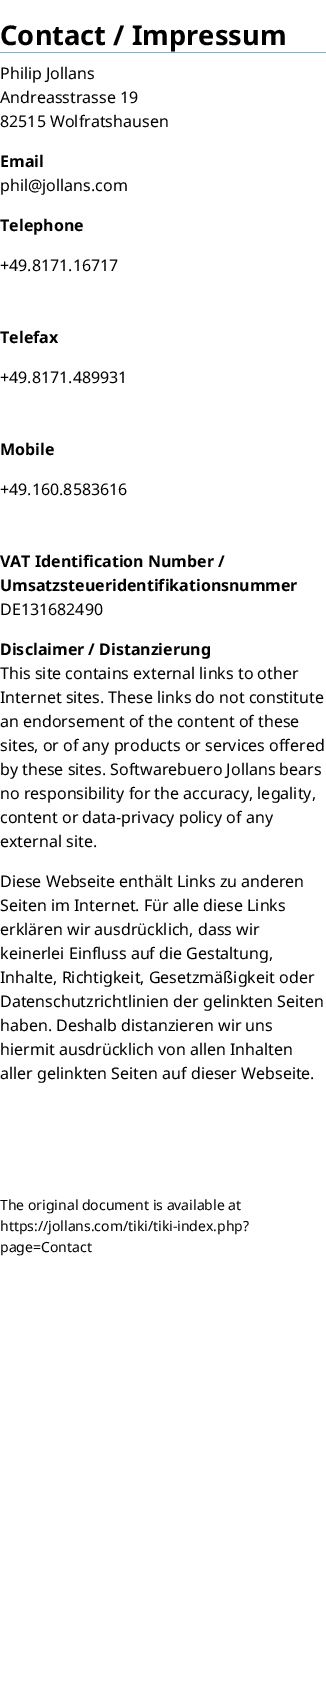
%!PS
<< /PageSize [326 1701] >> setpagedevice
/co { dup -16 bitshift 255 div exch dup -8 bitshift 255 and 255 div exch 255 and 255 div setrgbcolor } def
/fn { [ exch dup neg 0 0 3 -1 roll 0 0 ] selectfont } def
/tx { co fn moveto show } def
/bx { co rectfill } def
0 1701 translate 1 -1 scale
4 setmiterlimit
0 0 326 1701 16#FFFFFF bx
0 52 326 1 16#8CACBB bx
(Contact / Impressum) 0 45 /NotoSans-Bold 27.25 16#000000 tx
(Philip Jollans) 0 79 /NotoSans-Regular 16 16#000000 tx
(Andreasstrasse 19) 0 103 /NotoSans-Regular 16 16#000000 tx
(82515 Wolfratshausen) 0 127 /NotoSans-Regular 16 16#000000 tx
(Email) 0 167 /NotoSans-Bold 16 16#000000 tx
(phil@jollans.com) 0 191 /NotoSans-Regular 16 16#000000 tx
(Telephone) 0 231 /NotoSans-Bold 16 16#000000 tx
(+49.8171.16717) 0 271 /NotoSans-Regular 16 16#000000 tx
(Telefax) 0 343 /NotoSans-Bold 16 16#000000 tx
(+49.8171.489931) 0 383 /NotoSans-Regular 16 16#000000 tx
(Mobile) 0 455 /NotoSans-Bold 16 16#000000 tx
(+49.160.8583616) 0 495 /NotoSans-Regular 16 16#000000 tx
(VAT Identification Number /) 0 567 /NotoSans-Bold 16 16#000000 tx
(Umsatzsteueridentifikationsnummer) 0 591 /NotoSans-Bold 16 16#000000 tx
(DE131682490) 0 615 /NotoSans-Regular 16 16#000000 tx
(Disclaimer / Distanzierung) 0 655 /NotoSans-Bold 16 16#000000 tx
(This site contains external links to other) 0 679 /NotoSans-Regular 16 16#000000 tx
(Internet sites. These links do not constitute) 0 703 /NotoSans-Regular 16 16#000000 tx
(an endorsement of the content of these) 0 727 /NotoSans-Regular 16 16#000000 tx
(sites, or of any products or services offered) 0 751 /NotoSans-Regular 16 16#000000 tx
(by these sites. Softwarebuero Jollans bears) 0 775 /NotoSans-Regular 16 16#000000 tx
(no responsibility for the accuracy, legality,) 0 799 /NotoSans-Regular 16 16#000000 tx
(content or data-privacy policy of any) 0 823 /NotoSans-Regular 16 16#000000 tx
(external site.) 0 847 /NotoSans-Regular 16 16#000000 tx
(Diese Webseite enthält Links zu anderen) 0 887 /NotoSans-Regular 16 16#000000 tx
(Seiten im Internet. Für alle diese Links) 0 911 /NotoSans-Regular 16 16#000000 tx
(erklären wir ausdrücklich, dass wir) 0 935 /NotoSans-Regular 16 16#000000 tx
(keinerlei Einfluss auf die Gestaltung,) 0 959 /NotoSans-Regular 16 16#000000 tx
(Inhalte, Richtigkeit, Gesetzmäßigkeit oder) 0 983 /NotoSans-Regular 16 16#000000 tx
(Datenschutzrichtlinien der gelinkten Seiten) 0 1007 /NotoSans-Regular 16 16#000000 tx
(haben. Deshalb distanzieren wir uns) 0 1031 /NotoSans-Regular 16 16#000000 tx
(hiermit ausdrücklich von allen Inhalten) 0 1055 /NotoSans-Regular 16 16#000000 tx
(aller gelinkten Seiten auf dieser Webseite.) 0 1079 /NotoSans-Regular 16 16#000000 tx
(The original document is available at) 0 1210 /NotoSans-Regular 14 16#000000 tx
(https://jollans.com/tiki/tiki-index.php?) 0 1231 /NotoSans-Regular 14 16#000000 tx
(page=Contact) 0 1252 /NotoSans-Regular 14 16#000000 tx
showpage
